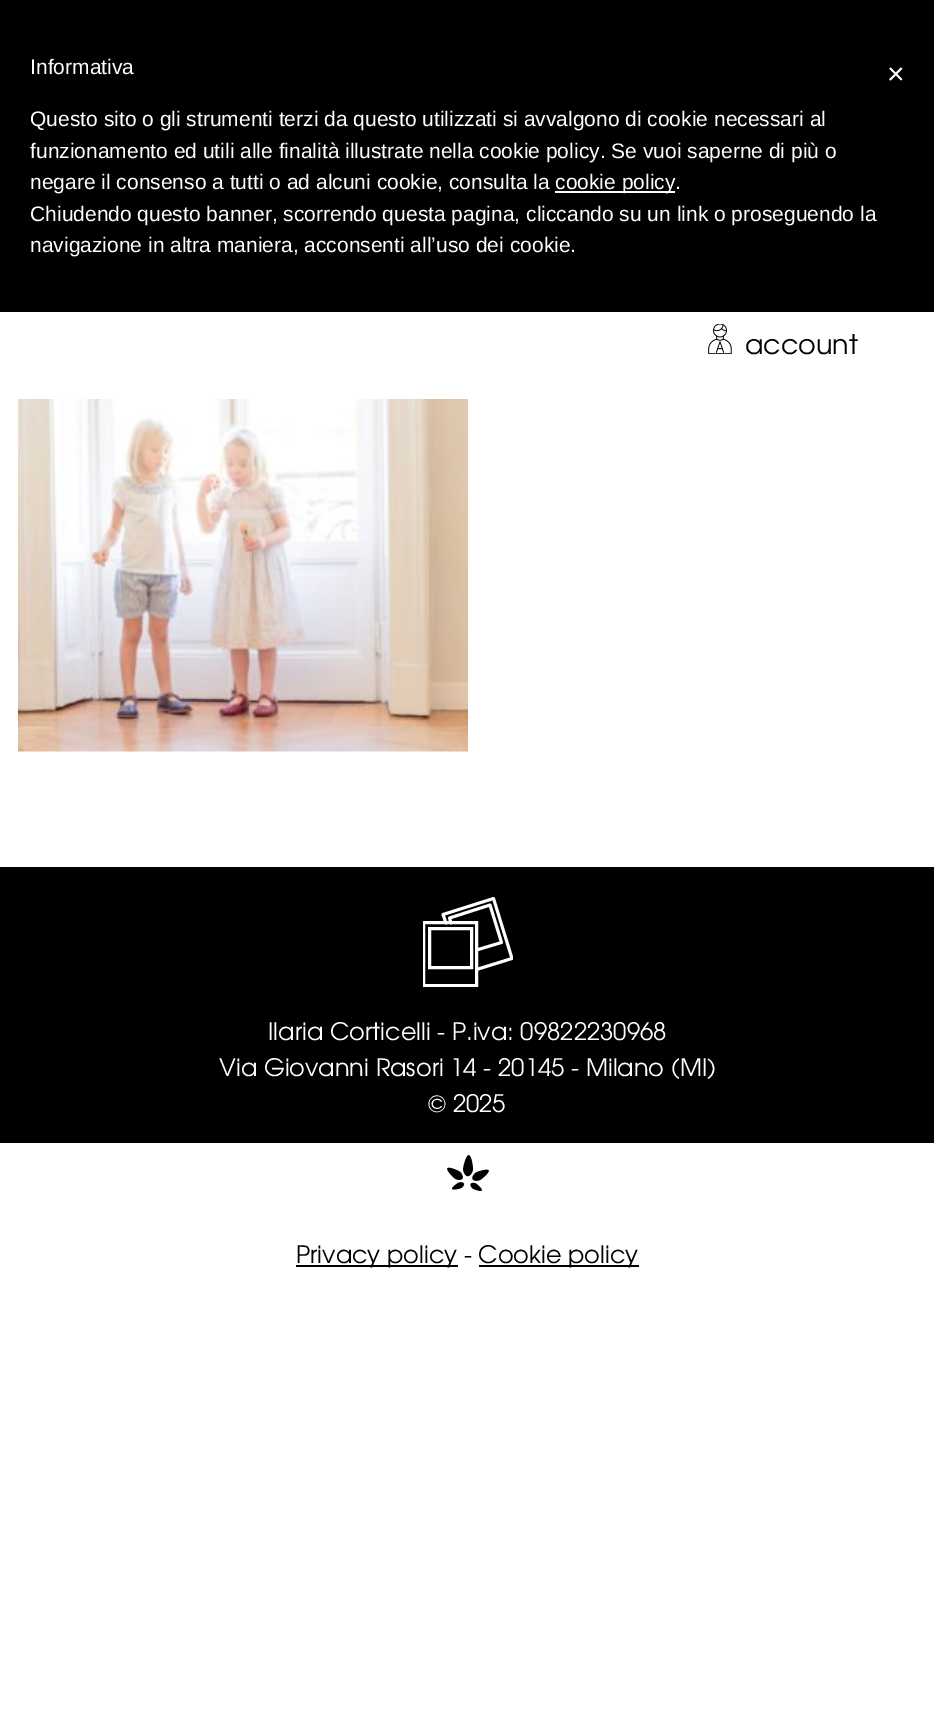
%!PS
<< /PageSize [934 1718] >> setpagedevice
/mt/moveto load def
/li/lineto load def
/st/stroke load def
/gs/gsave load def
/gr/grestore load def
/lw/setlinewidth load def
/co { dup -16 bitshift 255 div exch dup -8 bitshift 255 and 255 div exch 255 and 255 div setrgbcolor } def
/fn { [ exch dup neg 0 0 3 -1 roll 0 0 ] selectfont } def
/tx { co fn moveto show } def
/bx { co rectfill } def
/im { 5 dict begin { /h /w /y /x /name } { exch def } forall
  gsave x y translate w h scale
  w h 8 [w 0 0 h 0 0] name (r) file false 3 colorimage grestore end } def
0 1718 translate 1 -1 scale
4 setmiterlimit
0 0 934 1718 16#FFFFFF bx
0 0 934 312 16#000000 bx
555 191 120 2 16#FFFFFF bx
(media/1.raw) 708 324 24 30 im
(media/2.raw) 18 399 450 353 im
0 867 934 276 16#000000 bx
gs
423 897 90 90 rectclip
16#FFFFFF co
2.9 lw
1 setlinecap
1 setlinejoin
446 923 mt 443 914.5 li 493.5 898.5 li 512 958.5 li 476.5 969.5 li st
gr
16#FFFFFF co
2.9 lw
1 setlinecap
1 setlinejoin
451 923 mt 449.5 918 li 490 905 li 501.5 942.5 li 476.5 950 li st
gs
423 897 90 90 rectclip
3 lw
0 setlinecap
0 setlinejoin
423.5 922.5 53 63 rectstroke
gr
3 lw
0 setlinecap
0 setlinejoin
429.5 928.5 42 39 rectstroke
(media/3.raw) 447 1155 42 36 im
296 1265 162 2 16#000000 bx
479 1265 160 2 16#000000 bx
(Informativa) 30 74 /LiberationSans-Regular 21 16#FFFFFF tx
(Questo sito o gli strumenti terzi da questo utilizzati si avvalgono di cookie necessari al) 30 126 /LiberationSans-Regular 21 16#FFFFFF tx
(funzionamento ed utili alle finalità illustrate nella cookie policy. Se vuoi saperne di più o) 30 158 /LiberationSans-Regular 21 16#FFFFFF tx
(negare il consenso a tutti o ad alcuni cookie, consulta la) 30 189 /LiberationSans-Regular 21 16#FFFFFF tx
(cookie policy.) 555 189 /LiberationSans-Regular 21 16#FFFFFF tx
(Chiudendo questo banner, scorrendo questa pagina, cliccando su un link o proseguendo la) 30 221 /LiberationSans-Regular 21 16#FFFFFF tx
(navigazione in altra maniera, acconsenti all’uso dei cookie.) 30 252 /LiberationSans-Regular 21 16#FFFFFF tx
(×) 887 84 /LiberationSans-Regular 30 16#FFFFFF tx
(account) 745 354 /TeXGyreAdventor-Regular 27 16#000000 tx
(Ilaria Corticelli - P.iva: 09822230968) 268 1040 /TeXGyreAdventor-Regular 24 16#FFFFFF tx
(Via Giovanni Rasori 14 - 20145 - Milano \(MI\)) 219 1076 /TeXGyreAdventor-Regular 24 16#FFFFFF tx
(© 2025) 428 1112 /TeXGyreAdventor-Regular 24 16#FFFFFF tx
(Privacy policy -) 296 1263 /TeXGyreAdventor-Regular 24 16#000000 tx
(Cookie policy) 478 1263 /TeXGyreAdventor-Regular 24 16#000000 tx
showpage
